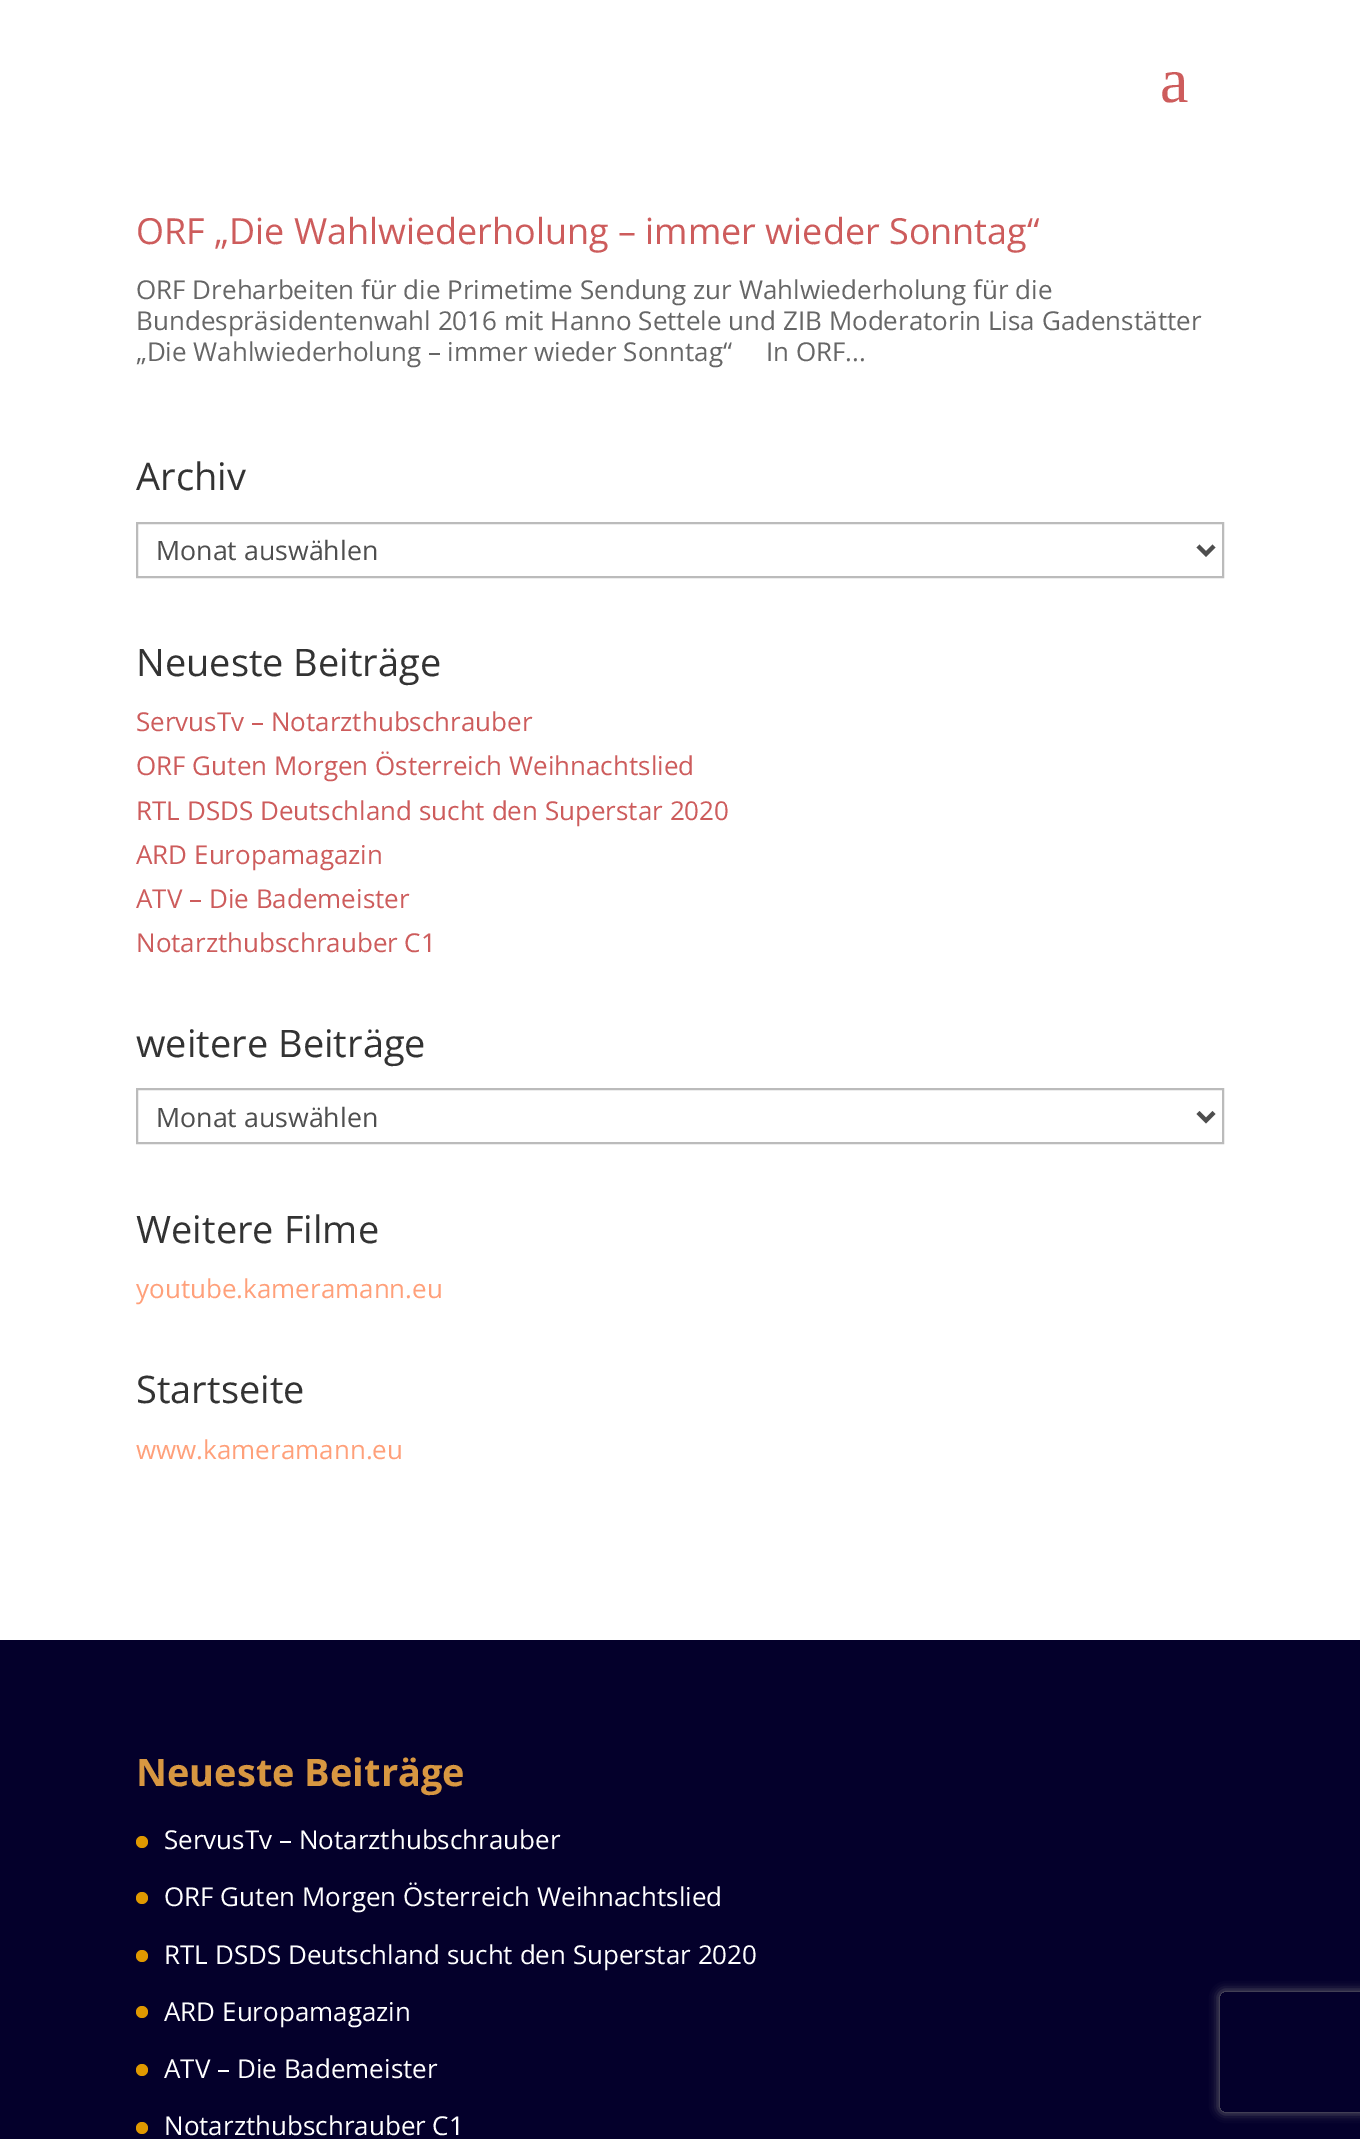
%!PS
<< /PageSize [1360 2139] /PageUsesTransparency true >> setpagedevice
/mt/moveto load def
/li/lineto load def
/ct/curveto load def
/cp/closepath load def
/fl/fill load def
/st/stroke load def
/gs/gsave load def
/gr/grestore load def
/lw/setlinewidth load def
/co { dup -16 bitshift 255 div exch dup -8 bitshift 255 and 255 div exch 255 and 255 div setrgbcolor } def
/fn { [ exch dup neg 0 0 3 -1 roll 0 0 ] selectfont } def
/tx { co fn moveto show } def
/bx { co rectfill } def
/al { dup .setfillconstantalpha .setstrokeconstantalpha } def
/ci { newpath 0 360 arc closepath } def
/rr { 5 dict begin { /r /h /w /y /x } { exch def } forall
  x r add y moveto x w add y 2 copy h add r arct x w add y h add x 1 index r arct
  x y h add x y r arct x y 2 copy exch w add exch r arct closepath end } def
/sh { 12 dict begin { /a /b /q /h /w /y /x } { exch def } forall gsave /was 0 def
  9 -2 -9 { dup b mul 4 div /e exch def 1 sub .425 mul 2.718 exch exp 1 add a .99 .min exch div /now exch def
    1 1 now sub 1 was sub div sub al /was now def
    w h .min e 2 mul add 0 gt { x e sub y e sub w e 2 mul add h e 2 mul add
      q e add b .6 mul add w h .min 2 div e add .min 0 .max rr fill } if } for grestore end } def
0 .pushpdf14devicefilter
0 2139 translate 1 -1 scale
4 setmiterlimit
0 0 1360 2139 16#FFFFFF bx
16#BBBBBB co
2 lw
137 523 1086 54 rectstroke
16#4E4E4E co
4 lw
1198 546 mt 1206 554 li 1214 546 li st
16#BBBBBB co
2 lw
137 1089 1086 54 rectstroke
16#4E4E4E co
4 lw
1198 1112.5 mt 1206 1120.5 li 1214 1112.5 li st
0 1640 1360 499 16#04002B bx
16#E09900 co
142 1842 6 ci fl
142 1898 6 ci fl
142 1956 6 ci fl
142 2012 6 ci fl
142 2070 6 ci fl
142 2128 6 ci fl
gs
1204 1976 mt 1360 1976 li 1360 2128 li 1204 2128 li cp 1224 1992 mt 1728 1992 li 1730 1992 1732 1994 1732 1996 ct 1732 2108 li 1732 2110 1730 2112 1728 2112 ct 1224 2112 li 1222 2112 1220 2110 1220 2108 ct 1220 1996 li 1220 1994 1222 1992 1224 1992 ct cp eoclip newpath
16#808080 co
1220 1992 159 120 4 5 1 sh
gr
(a) 1160 102 /LiberationSerif-Regular 64 16#CD5C5C tx
(ORF „Die Wahlwiederholung – immer wieder Sonntag“) 136 244 /OpenSans-Regular 36 16#CD5C5C tx
(ORF Dreharbeiten für die Primetime Sendung zur Wahlwiederholung für die) 136 299 /OpenSans-Regular 26 16#666666 tx
(Bundespräsidentenwahl 2016 mit Hanno Settele und ZIB Moderatorin Lisa Gadenstätter) 136 330 /OpenSans-Regular 26 16#666666 tx
(„Die Wahlwiederholung – immer wieder Sonntag“     In ORF...) 136 361 /OpenSans-Regular 26 16#666666 tx
(Archiv) 136 490 /OpenSans-Regular 38 16#333333 tx
(Monat auswählen) 156 560 /OpenSans-Regular 26.75 16#4E4E4E tx
(Neueste Beiträge) 136 676 /OpenSans-Regular 38 16#333333 tx
(ServusTv – Notarzthubschrauber) 136 731 /OpenSans-Regular 26 16#CD5C5C tx
(ORF Guten Morgen Österreich Weihnachtslied) 136 775 /OpenSans-Regular 26 16#CD5C5C tx
(RTL DSDS Deutschland sucht den Superstar 2020) 136 820 /OpenSans-Regular 26 16#CD5C5C tx
(ARD Europamagazin) 136 864 /OpenSans-Regular 26 16#CD5C5C tx
(ATV – Die Bademeister) 136 908 /OpenSans-Regular 26 16#CD5C5C tx
(Notarzthubschrauber C1) 136 952 /OpenSans-Regular 26 16#CD5C5C tx
(weitere Beiträge) 136 1057 /OpenSans-Regular 38 16#333333 tx
(Monat auswählen) 156 1127 /OpenSans-Regular 26.75 16#4E4E4E tx
(Weitere Filme) 136 1243 /OpenSans-Regular 38 16#333333 tx
(youtube.kameramann.eu) 136 1298 /OpenSans-Regular 26 16#FFA07A tx
(Startseite) 136 1403 /OpenSans-Regular 38 16#333333 tx
(www.kameramann.eu) 136 1459 /OpenSans-Regular 26 16#FFA07A tx
(Neueste Beiträge) 136 1786 /OpenSans-Bold 38 16#D89741 tx
(ServusTv – Notarzthubschrauber) 164 1849 /OpenSans-Regular 26 16#FFFFFF tx
(ORF Guten Morgen Österreich Weihnachtslied) 164 1906 /OpenSans-Regular 26 16#FFFFFF tx
(RTL DSDS Deutschland sucht den Superstar 2020) 164 1964 /OpenSans-Regular 26 16#FFFFFF tx
(ARD Europamagazin) 164 2021 /OpenSans-Regular 26 16#FFFFFF tx
(ATV – Die Bademeister) 164 2078 /OpenSans-Regular 26 16#FFFFFF tx
(Notarzthubschrauber C1) 164 2135 /OpenSans-Regular 26 16#FFFFFF tx
.poppdf14devicefilter showpage
